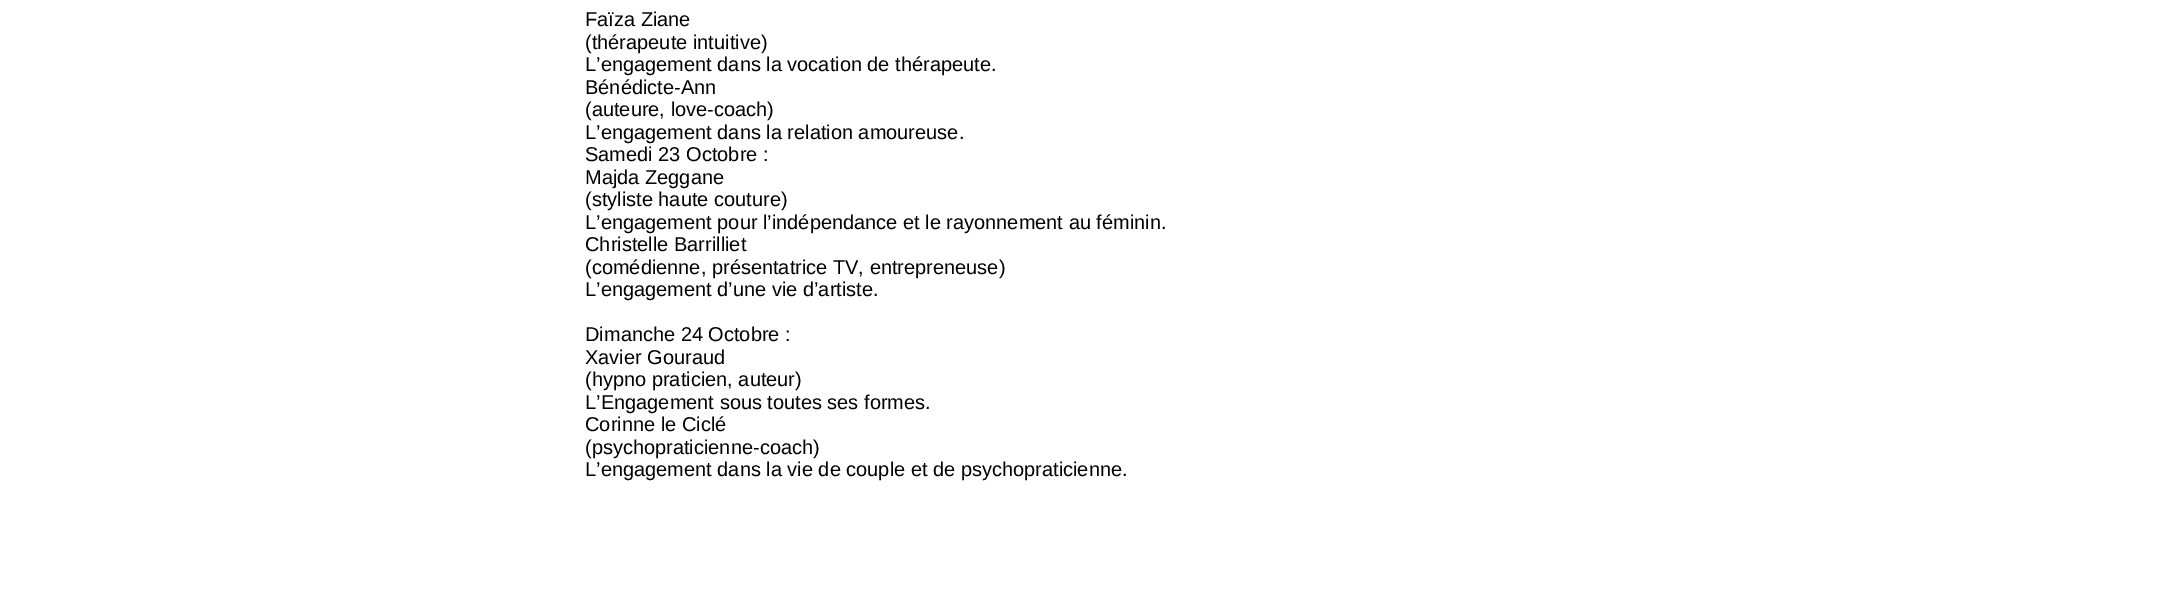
%!PS
<< /PageSize [2169 613] >> setpagedevice
/co { dup -16 bitshift 255 div exch dup -8 bitshift 255 and 255 div exch 255 and 255 div setrgbcolor } def
/fn { [ exch dup neg 0 0 3 -1 roll 0 0 ] selectfont } def
/tx { co fn moveto show } def
/bx { co rectfill } def
0 613 translate 1 -1 scale
4 setmiterlimit
0 0 2169 613 16#FFFFFF bx
(Faïza Ziane) 585 26 /LiberationSans-Regular 20 16#000000 tx
(\(thérapeute intuitive\)) 585 49 /LiberationSans-Regular 20 16#000000 tx
(L’engagement dans la vocation de thérapeute.) 585 71 /LiberationSans-Regular 20 16#000000 tx
(Bénédicte-Ann) 585 94 /LiberationSans-Regular 20 16#000000 tx
(\(auteure, love-coach\)) 585 116 /LiberationSans-Regular 20 16#000000 tx
(L’engagement dans la relation amoureuse.) 585 139 /LiberationSans-Regular 20 16#000000 tx
(Samedi 23 Octobre :) 585 161 /LiberationSans-Regular 20 16#000000 tx
(Majda Zeggane) 585 184 /LiberationSans-Regular 20 16#000000 tx
(\(styliste haute couture\)) 585 206 /LiberationSans-Regular 20 16#000000 tx
(L’engagement pour l’indépendance et le rayonnement au féminin.) 585 229 /LiberationSans-Regular 20 16#000000 tx
(Christelle Barrilliet) 585 251 /LiberationSans-Regular 20 16#000000 tx
(\(comédienne, présentatrice TV, entrepreneuse\)) 585 274 /LiberationSans-Regular 20 16#000000 tx
(L’engagement d’une vie d’artiste.) 585 296 /LiberationSans-Regular 20 16#000000 tx
(Dimanche 24 Octobre :) 585 341 /LiberationSans-Regular 20 16#000000 tx
(Xavier Gouraud) 585 364 /LiberationSans-Regular 20 16#000000 tx
(\(hypno praticien, auteur\)) 585 386 /LiberationSans-Regular 20 16#000000 tx
(L’Engagement sous toutes ses formes.) 585 409 /LiberationSans-Regular 20 16#000000 tx
(Corinne le Ciclé) 585 431 /LiberationSans-Regular 20 16#000000 tx
(\(psychopraticienne-coach\)) 585 454 /LiberationSans-Regular 20 16#000000 tx
(L’engagement dans la vie de couple et de psychopraticienne.) 585 476 /LiberationSans-Regular 20 16#000000 tx
showpage
